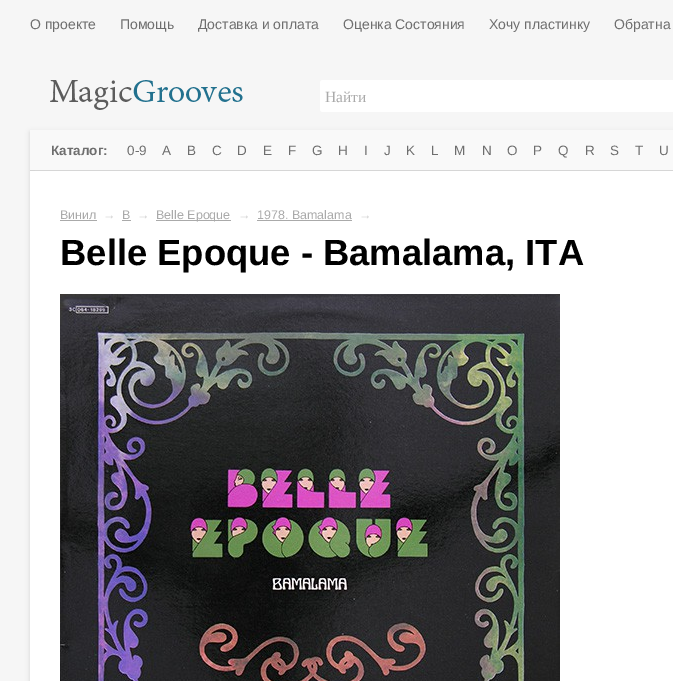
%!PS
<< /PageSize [673 681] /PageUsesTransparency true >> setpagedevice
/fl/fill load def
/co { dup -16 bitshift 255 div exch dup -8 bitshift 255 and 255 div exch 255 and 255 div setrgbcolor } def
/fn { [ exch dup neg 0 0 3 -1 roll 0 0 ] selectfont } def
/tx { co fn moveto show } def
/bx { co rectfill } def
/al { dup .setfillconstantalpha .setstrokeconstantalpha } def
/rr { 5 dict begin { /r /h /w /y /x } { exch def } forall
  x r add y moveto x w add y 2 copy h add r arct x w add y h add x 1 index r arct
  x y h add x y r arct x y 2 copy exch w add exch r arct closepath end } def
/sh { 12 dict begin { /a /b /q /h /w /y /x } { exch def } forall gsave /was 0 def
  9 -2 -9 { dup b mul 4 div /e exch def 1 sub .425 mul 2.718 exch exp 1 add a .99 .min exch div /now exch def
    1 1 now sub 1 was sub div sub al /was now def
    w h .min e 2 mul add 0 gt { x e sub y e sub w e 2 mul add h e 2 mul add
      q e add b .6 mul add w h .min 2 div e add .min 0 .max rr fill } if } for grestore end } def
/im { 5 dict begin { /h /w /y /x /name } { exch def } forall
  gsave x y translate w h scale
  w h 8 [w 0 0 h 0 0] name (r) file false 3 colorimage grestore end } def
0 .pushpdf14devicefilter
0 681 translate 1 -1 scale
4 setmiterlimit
0 0 673 681 16#F6F6F6 bx
(media/1.raw) 50 80 193 30 im
16#FFFFFF co
320 80 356 32 3 rr fl
16#000000 co
30 132 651 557 0 2.5 .13 sh
30 171 643 510 16#FFFFFF bx
30 130 643 40 16#F9F9F9 bx
30 170 5 1 16#D4D4D4 bx
60 220 37 1 16#AAAAAA bx
122 220 9 1 16#AAAAAA bx
156 220 75 1 16#AAAAAA bx
257 220 95 1 16#AAAAAA bx
(media/2.raw) 60 294 500 387 im
(О проекте) 30 29 /LiberationSans-Regular 14 16#6E6E6E tx
(Помощь) 120 29 /LiberationSans-Regular 14 16#6E6E6E tx
(Доставка и оплата) 198 29 /LiberationSans-Regular 14 16#6E6E6E tx
(Оценка Состояния) 343 29 /LiberationSans-Regular 14 16#6E6E6E tx
(Хочу пластинку) 489 29 /LiberationSans-Regular 14 16#6E6E6E tx
(Обратна) 614 29 /LiberationSans-Regular 14 16#6E6E6E tx
(Найти) 325 102 /LiberationSerif-Regular 15.5 16#AAAAAA tx
(Каталог:) 51 155 /LiberationSans-Bold 13.5 16#6E6E6E tx
(0-9) 127 155 /LiberationSans-Regular 13.5 16#6E6E6E tx
(A) 162 155 /LiberationSans-Regular 13.5 16#6E6E6E tx
(B) 187 155 /LiberationSans-Regular 13.5 16#6E6E6E tx
(C) 212 155 /LiberationSans-Regular 13.5 16#6E6E6E tx
(D) 237 155 /LiberationSans-Regular 13.5 16#6E6E6E tx
(E) 263 155 /LiberationSans-Regular 13.5 16#6E6E6E tx
(F) 288 155 /LiberationSans-Regular 13.5 16#6E6E6E tx
(G) 312 155 /LiberationSans-Regular 13.5 16#6E6E6E tx
(H) 338 155 /LiberationSans-Regular 13.5 16#6E6E6E tx
(I) 364 155 /LiberationSans-Regular 13.5 16#6E6E6E tx
(J) 384 155 /LiberationSans-Regular 13.5 16#6E6E6E tx
(K) 406 155 /LiberationSans-Regular 13.5 16#6E6E6E tx
(L) 431 155 /LiberationSans-Regular 13.5 16#6E6E6E tx
(M) 454 155 /LiberationSans-Regular 13.5 16#6E6E6E tx
(N) 482 155 /LiberationSans-Regular 13.5 16#6E6E6E tx
(O) 507 155 /LiberationSans-Regular 13.5 16#6E6E6E tx
(P) 533 155 /LiberationSans-Regular 13.5 16#6E6E6E tx
(Q) 558 155 /LiberationSans-Regular 13.5 16#6E6E6E tx
(R) 585 155 /LiberationSans-Regular 13.5 16#6E6E6E tx
(S) 610 155 /LiberationSans-Regular 13.5 16#6E6E6E tx
(T) 635 155 /LiberationSans-Regular 13.5 16#6E6E6E tx
(U) 659 155 /LiberationSans-Regular 13.5 16#6E6E6E tx
(Винил) 60 219 /LiberationSans-Regular 12.5 16#AAAAAA tx
(→) 103 219 /LiberationSans-Regular 12.5 16#CCCCCC tx
(B) 122 219 /LiberationSans-Regular 12.5 16#AAAAAA tx
(→) 137 219 /LiberationSans-Regular 12.5 16#CCCCCC tx
(Belle Epoque) 156 219 /LiberationSans-Regular 12.5 16#AAAAAA tx
(→) 238 219 /LiberationSans-Regular 12.5 16#CCCCCC tx
(1978. Bamalama) 257 219 /LiberationSans-Regular 12.5 16#AAAAAA tx
(→) 359 219 /LiberationSans-Regular 12.5 16#CCCCCC tx
(Belle Epoque - Bamalama, ITA) 60 265 /LiberationSans-Bold 36.4 16#000000 tx
.poppdf14devicefilter showpage
